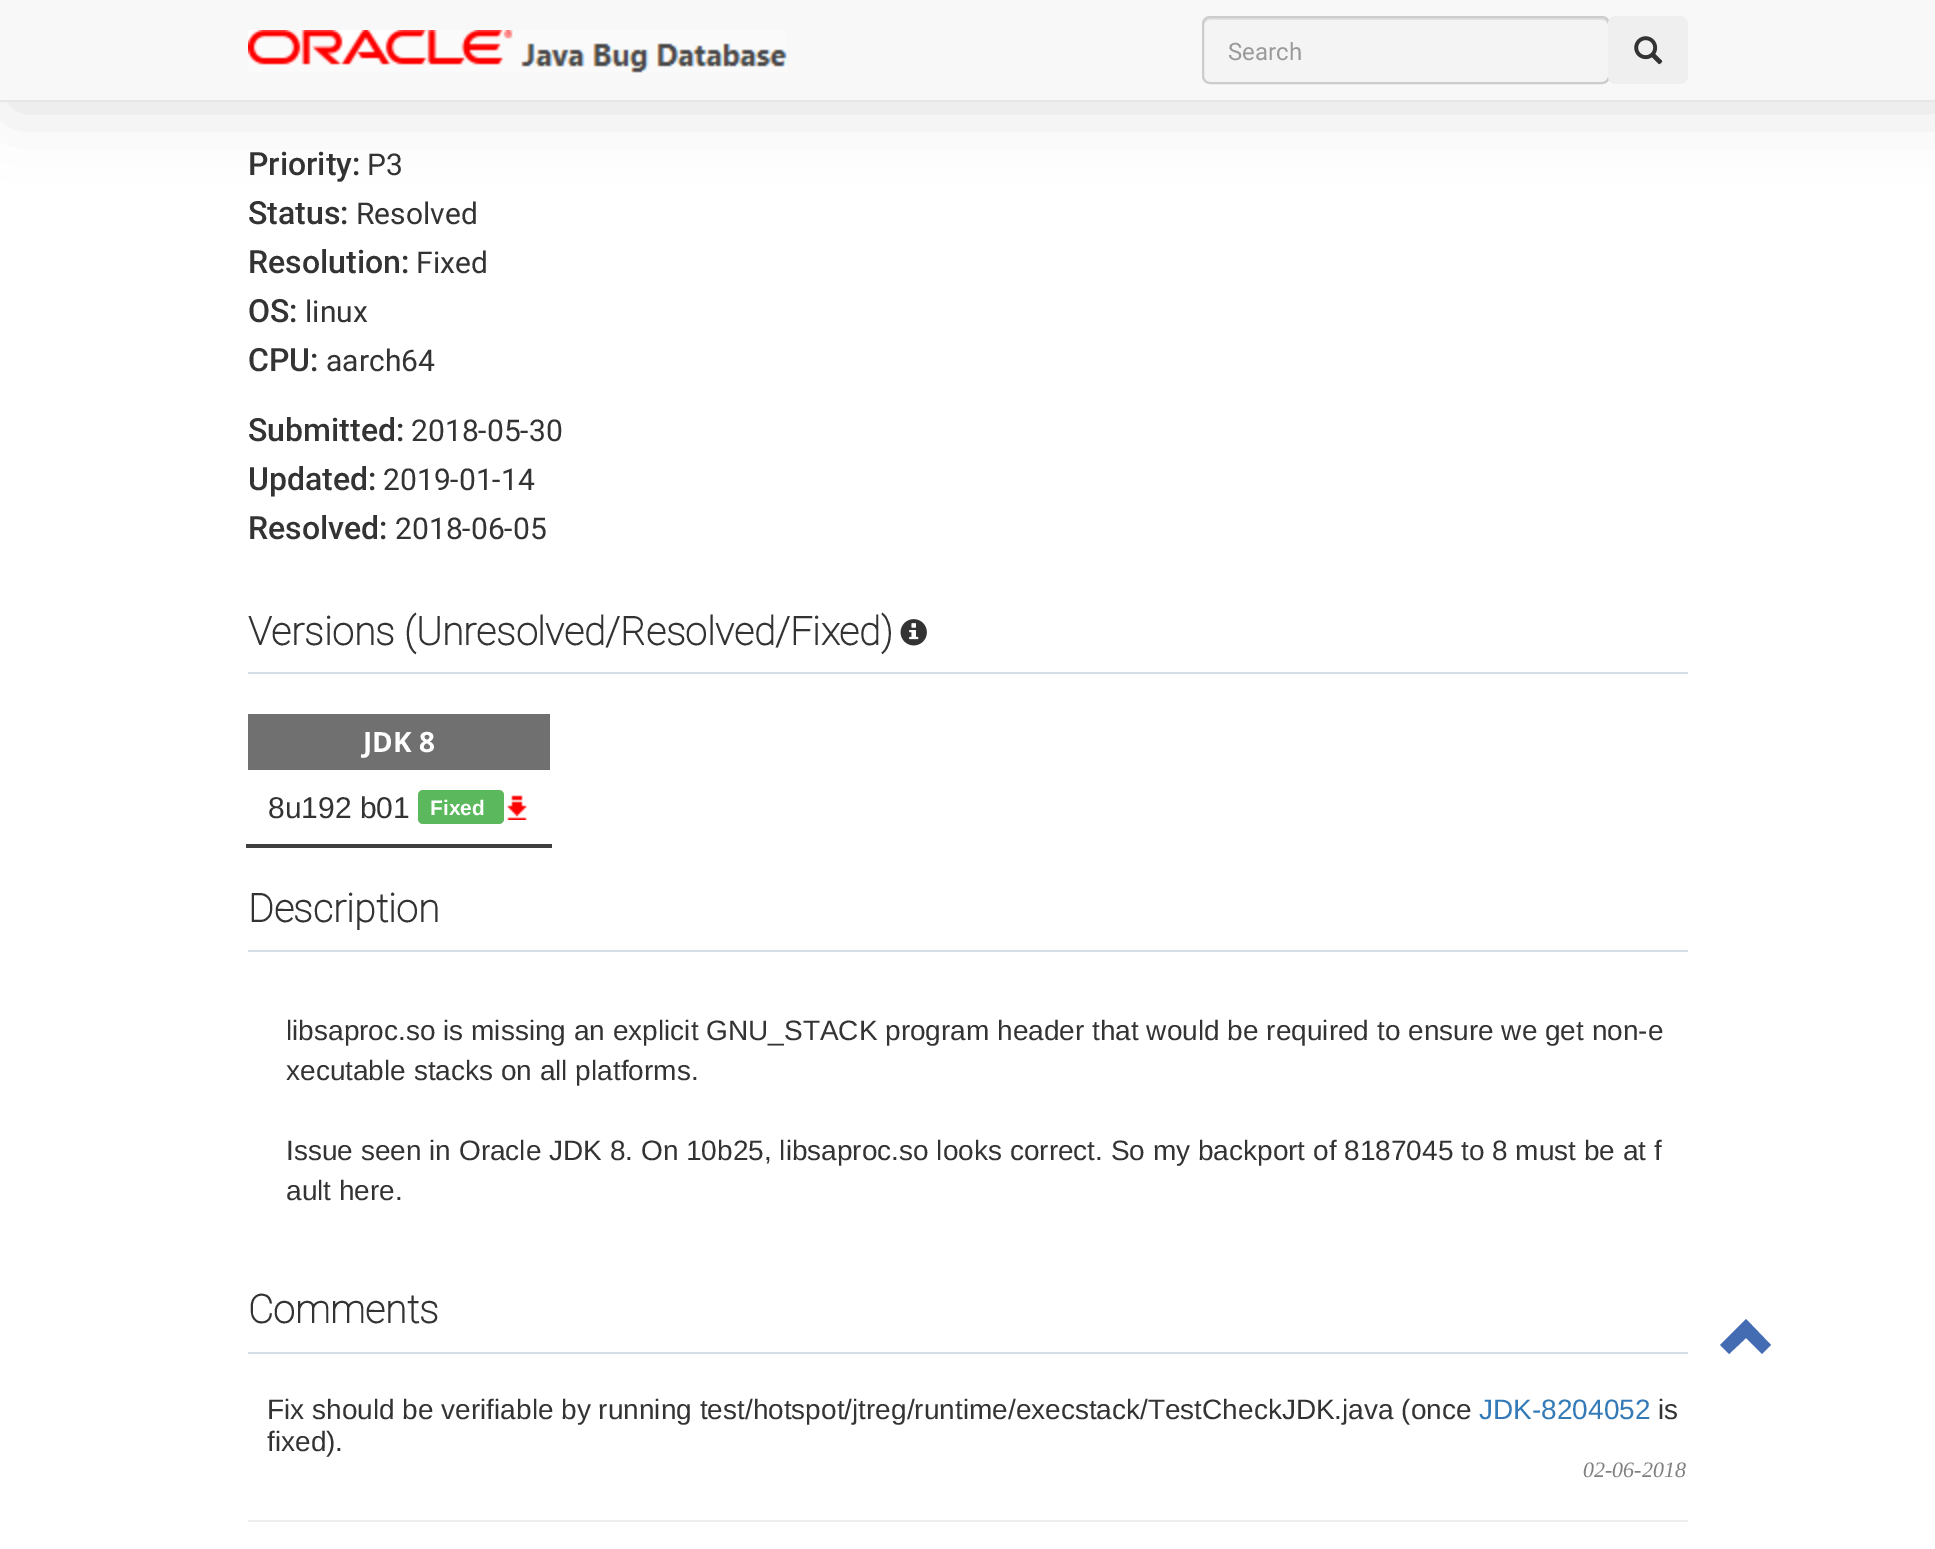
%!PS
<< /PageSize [1935 1549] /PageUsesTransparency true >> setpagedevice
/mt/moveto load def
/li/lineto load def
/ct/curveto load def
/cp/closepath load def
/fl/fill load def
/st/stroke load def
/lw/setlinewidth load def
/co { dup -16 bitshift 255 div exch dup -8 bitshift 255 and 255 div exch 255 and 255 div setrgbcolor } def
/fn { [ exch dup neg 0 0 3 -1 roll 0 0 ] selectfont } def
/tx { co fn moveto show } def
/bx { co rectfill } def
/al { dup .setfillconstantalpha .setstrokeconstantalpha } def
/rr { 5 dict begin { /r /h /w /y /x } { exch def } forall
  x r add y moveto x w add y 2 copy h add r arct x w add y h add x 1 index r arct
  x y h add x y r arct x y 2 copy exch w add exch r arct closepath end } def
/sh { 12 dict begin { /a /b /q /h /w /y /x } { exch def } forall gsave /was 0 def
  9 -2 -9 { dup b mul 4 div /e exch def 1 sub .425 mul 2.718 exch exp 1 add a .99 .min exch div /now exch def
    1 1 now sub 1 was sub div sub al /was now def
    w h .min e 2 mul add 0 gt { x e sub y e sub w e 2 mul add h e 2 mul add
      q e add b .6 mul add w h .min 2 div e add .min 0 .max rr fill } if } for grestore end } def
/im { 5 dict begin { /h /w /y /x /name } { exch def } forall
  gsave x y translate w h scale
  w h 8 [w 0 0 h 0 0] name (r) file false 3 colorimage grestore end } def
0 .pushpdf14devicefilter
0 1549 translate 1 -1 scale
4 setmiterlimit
0 0 1935 1549 16#FFFFFF bx
16#DBDBDB co
10 4 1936 102 0 35 1 sh
0 0 1935 100 16#F8F8F8 bx
0 100 1935 2 16#E7E7E7 bx
(media/1.raw) 248 30 539 43 im
16#F4F4F4 co
1202 16 408 68 8 rr fl
16#E2E2E2 co
1210 20 mt 1602 20 li 1605 20 1608 23 1608 26 ct 1608 22 1607 18 1602 18 ct 1210 18 li 1205 18 1204 22 1204 26 ct 1204 23 1207 20 1210 20 ct cp fl
16#CCCCCC co
2 lw
1203 17 406 66 7 rr st
16#EFEFEF co
1608 16 80 68 8 rr fl
(media/2.raw) 1634 36 29 29 im
248 672 1440 2 16#D6DFE6 bx
(media/3.raw) 900 619 27 27 im
248 714 302 56 16#707070 bx
246 844 306 4 16#3F3F3F bx
16#5CB85C co
418 790 86 34 5 rr fl
(media/4.raw) 507 795 20 25 im
248 950 1440 2 16#D6DFE6 bx
248 1352 1440 2 16#D6DFE6 bx
248 1520 1440 2 16#EEEEEE bx
16#446CB3 co
1771 1345 mt 1762 1354 li 1746 1338 li 1729 1354 li 1720 1345 li 1746 1319 li cp fl
(Search) 1228 60 /Roboto-Regular 24 16#999999 tx
(Priority:) 248 175 /Roboto-Medium 32 16#333333 tx
(P3) 367 175 /Roboto-Regular 30 16#333333 tx
(Status:) 248 224 /Roboto-Medium 32 16#333333 tx
(Resolved) 356 224 /Roboto-Regular 30 16#333333 tx
(Resolution:) 248 273 /Roboto-Medium 32 16#333333 tx
(Fixed) 416 273 /Roboto-Regular 30 16#333333 tx
(OS:) 248 322 /Roboto-Medium 32 16#333333 tx
(linux) 305 322 /Roboto-Regular 30 16#333333 tx
(CPU:) 248 371 /Roboto-Medium 32 16#333333 tx
(aarch64) 326 371 /Roboto-Regular 30 16#333333 tx
(Submitted:) 248 441 /Roboto-Medium 32 16#333333 tx
(2018-05-30) 411 441 /Roboto-Regular 30 16#333333 tx
(Updated:) 248 490 /Roboto-Medium 32 16#333333 tx
(2019-01-14) 383 490 /Roboto-Regular 30 16#333333 tx
(Resolved:) 248 539 /Roboto-Medium 32 16#333333 tx
(2018-06-05) 395 539 /Roboto-Regular 30 16#333333 tx
(Versions \(Unresolved/Resolved/Fixed\)) 248 645 /Roboto-Bold 39.25 16#333333 tx
(JDK 8) 363 752 /OpenSans-Bold 28 16#FFFFFF tx
(8u192 b01) 268 818 /LiberationSans-Regular 30 16#333333 tx
(Fixed) 430 815 /LiberationSans-Bold 21 16#FFFFFF tx
(Description) 248 922 /Roboto-Bold 39.25 16#333333 tx
(libsaproc.so is missing an explicit GNU_STACK program header that would be required to ensure we get non-e) 286 1040 /LiberationSans-Regular 28 16#333333 tx
(xecutable stacks on all platforms.) 286 1080 /LiberationSans-Regular 28 16#333333 tx
(Issue seen in Oracle JDK 8. On 10b25, libsaproc.so looks correct. So my backport of 8187045 to 8 must be at f) 286 1160 /LiberationSans-Regular 28 16#333333 tx
(ault here.) 286 1200 /LiberationSans-Regular 28 16#333333 tx
(Comments) 248 1323 /Roboto-Bold 39.25 16#333333 tx
(Fix should be verifiable by running test/hotspot/jtreg/runtime/execstack/TestCheckJDK.java \(once) 267 1419 /LiberationSans-Regular 28 16#333333 tx
(JDK-8204052) 1479 1419 /LiberationSans-Regular 28 16#337AB7 tx
(is) 1658 1419 /LiberationSans-Regular 28 16#333333 tx
(fixed\).) 267 1451 /LiberationSans-Regular 28 16#333333 tx
(02-06-2018) 1583 1477 /LiberationSerif-Italic 22 16#808080 tx
.poppdf14devicefilter showpage
